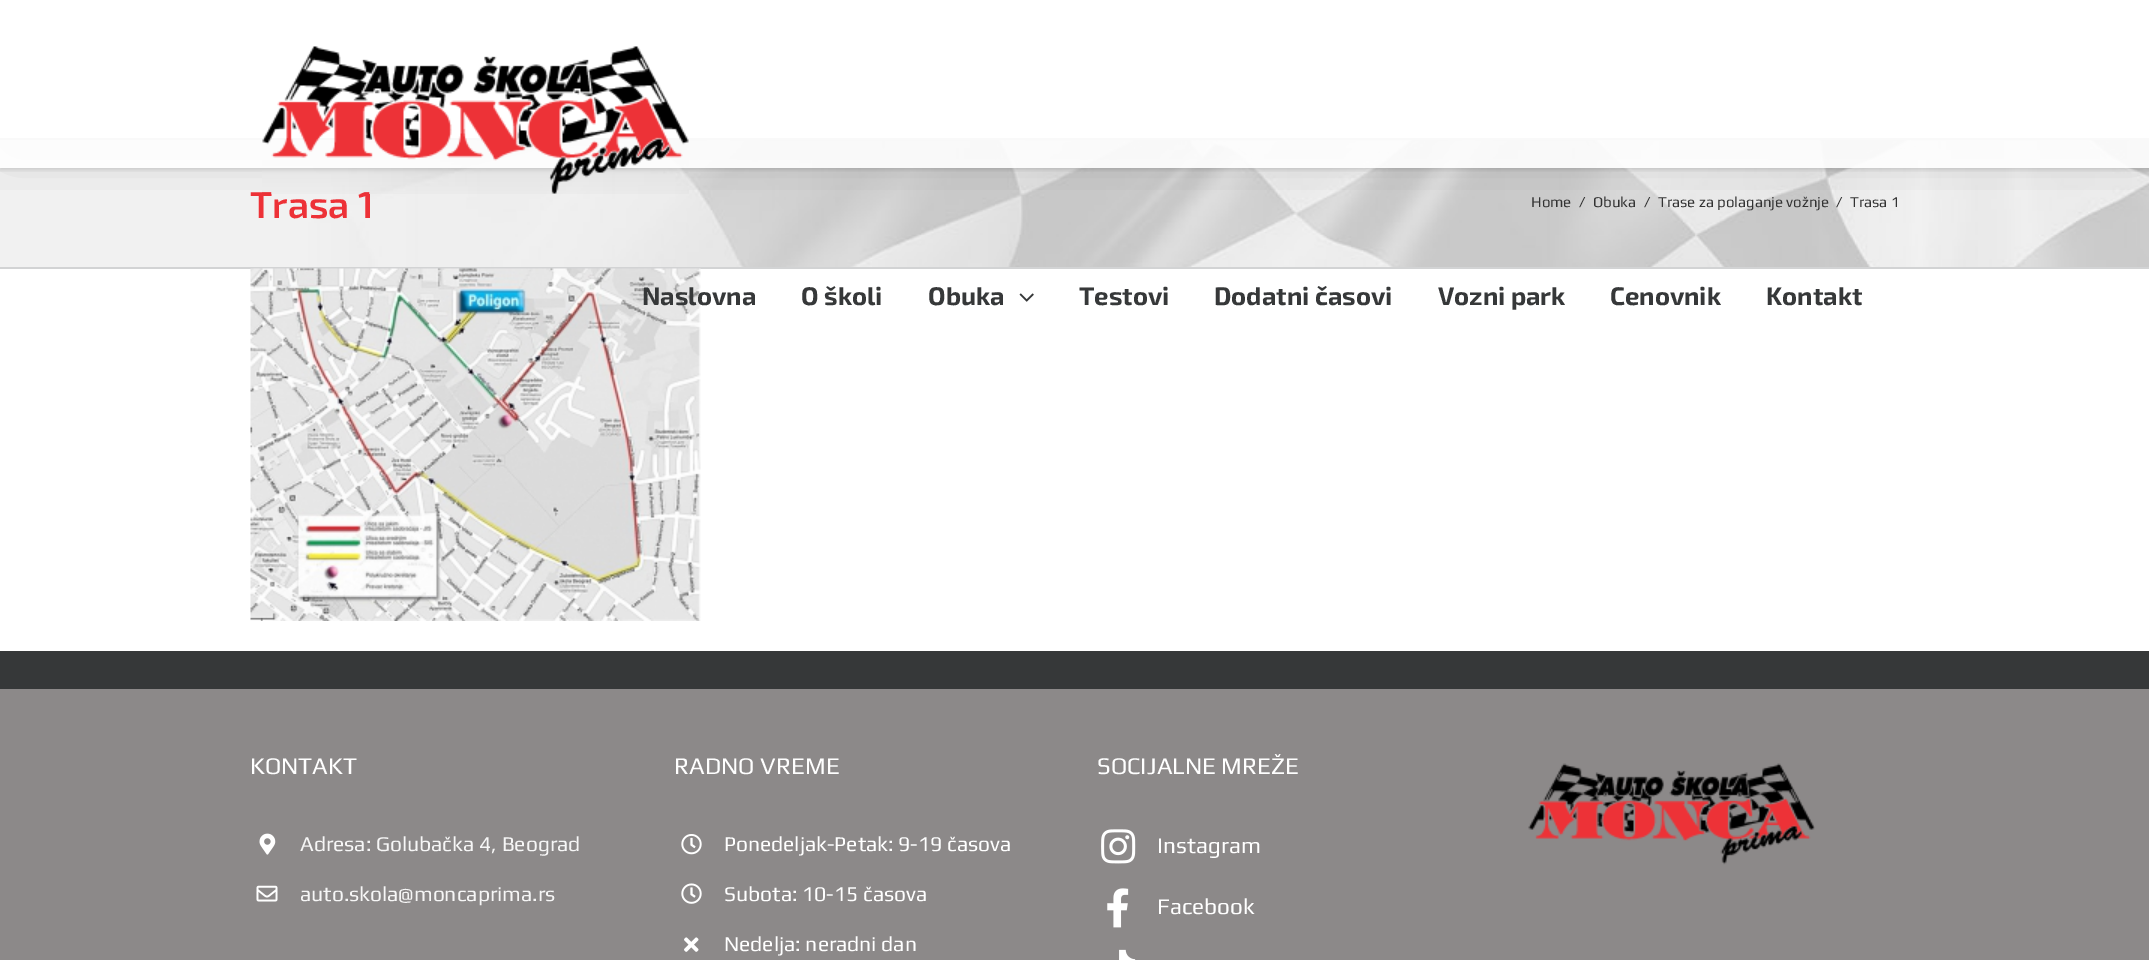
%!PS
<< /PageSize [2149 960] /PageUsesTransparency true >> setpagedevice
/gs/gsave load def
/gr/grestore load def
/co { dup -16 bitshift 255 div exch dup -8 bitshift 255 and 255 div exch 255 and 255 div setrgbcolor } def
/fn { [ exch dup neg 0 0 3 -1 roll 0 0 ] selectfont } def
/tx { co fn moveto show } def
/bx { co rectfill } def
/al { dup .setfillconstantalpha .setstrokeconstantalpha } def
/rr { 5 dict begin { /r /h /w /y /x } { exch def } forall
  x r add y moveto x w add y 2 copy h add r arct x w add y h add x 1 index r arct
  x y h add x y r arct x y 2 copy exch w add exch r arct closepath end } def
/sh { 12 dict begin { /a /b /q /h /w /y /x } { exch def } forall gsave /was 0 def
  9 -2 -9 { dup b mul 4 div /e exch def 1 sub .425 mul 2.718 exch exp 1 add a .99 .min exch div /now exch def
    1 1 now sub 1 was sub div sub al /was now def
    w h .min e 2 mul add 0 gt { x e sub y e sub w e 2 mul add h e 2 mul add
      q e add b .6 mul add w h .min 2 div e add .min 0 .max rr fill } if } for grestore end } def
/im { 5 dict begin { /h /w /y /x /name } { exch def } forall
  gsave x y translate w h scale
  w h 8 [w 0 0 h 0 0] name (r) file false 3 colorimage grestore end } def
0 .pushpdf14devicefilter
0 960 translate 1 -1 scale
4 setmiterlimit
0 0 2149 960 16#FFFFFF bx
(media/1.raw) 0 140 2149 127 im
0 138 2149 2 16#D2D3D4 bx
0 267 2149 2 16#D2D3D4 bx
(media/2.raw) 250 268 451 353 im
gs
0 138 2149 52 rectclip
16#000000 co
3 -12 2144 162 0 37.5 .14 sh
gr
gs
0 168 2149 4 rectclip
16#000000 co
0 2 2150 168 0 2 .12 sh
gr
0.9 al
0 138 2149 30 16#FFFFFF bx
1 al
(media/4.raw) 1019 293 15 9 im
0 689 2149 271 16#8C8989 bx
0 651 2149 38 16#363839 bx
(media/5.raw) 259 833 17 22 im
(media/6.raw) 256 885 22 17 im
(media/7.raw) 681 834 21 21 im
(media/8.raw) 681 883 21 21 im
(media/9.raw) 684 937 15 15 im
(media/10.raw) 1101 829 35 35 im
(media/11.raw) 1107 888 22 40 im
(media/12.raw) 1119 949 17 11 im
(media/13.raw) 1528 763 287 102 im
(Trasa 1) 250 218 /Exo2-SemiBold 37.5 16#ED3137 tx
(Home) 1531 207 /Play-Regular 15 16#333333 tx
(/) 1579 207 /Play-Regular 15 16#333333 tx
(Obuka) 1593 207 /Play-Regular 15 16#333333 tx
(/) 1644 207 /Play-Regular 15 16#333333 tx
(Trase za polaganje vožnje) 1658 207 /Play-Regular 15 16#333333 tx
(/) 1836 207 /Play-Regular 15 16#333333 tx
(Trasa 1) 1850 207 /Play-Regular 15 16#333333 tx
(media/3.raw) 262 46 427 148 im
(Naslovna) 642 305 /Exo2-Bold 25.5 16#363839 tx
(O školi) 801 305 /Exo2-Bold 25.5 16#363839 tx
(Obuka) 928 305 /Exo2-Bold 25.5 16#363839 tx
(Testovi) 1079 305 /Exo2-Bold 25.5 16#363839 tx
(Dodatni časovi) 1214 305 /Exo2-Bold 25.5 16#363839 tx
(Vozni park) 1438 305 /Exo2-Bold 25.5 16#363839 tx
(Cenovnik) 1610 305 /Exo2-Bold 25.5 16#363839 tx
(Kontakt) 1766 305 /Exo2-Bold 25.5 16#363839 tx
(KONTAKT) 250 774 /Play-Regular 24 16#FFFFFF tx
(Adresa: Golubačka 4, Beograd) 300 851 /Play-Regular 21 16#F6F6F6 tx
(auto.skola@moncaprima.rs) 300 901 /Play-Regular 21 16#F6F6F6 tx
(RADNO VREME) 674 774 /Play-Regular 24 16#FFFFFF tx
(Ponedeljak-Petak: 9-19 časova) 724 851 /Play-Regular 21 16#FFFFFF tx
(Subota: 10-15 časova) 724 901 /Play-Regular 21 16#FFFFFF tx
(Nedelja: neradni dan) 724 951 /Play-Regular 21 16#FFFFFF tx
(SOCIJALNE MREŽE) 1097 774 /Play-Regular 24 16#FFFFFF tx
(Instagram) 1157 853 /Play-Regular 22.5 16#FFFFFF tx
(Facebook) 1157 914 /Play-Regular 22.5 16#FFFFFF tx
.poppdf14devicefilter showpage
